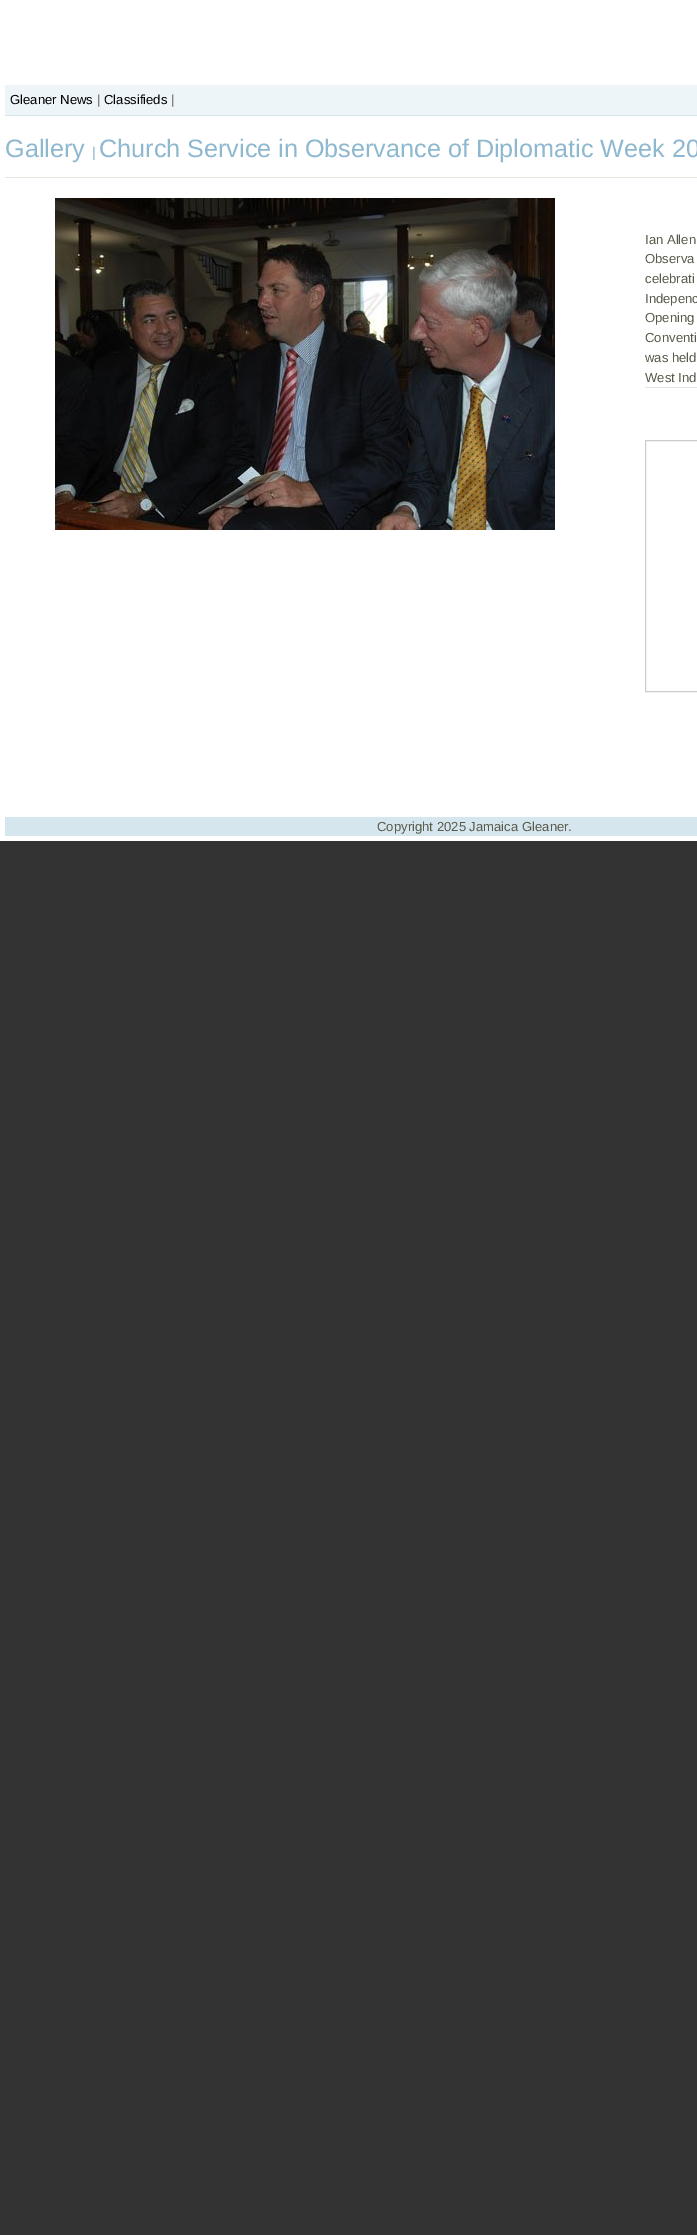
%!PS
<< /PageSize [697 2235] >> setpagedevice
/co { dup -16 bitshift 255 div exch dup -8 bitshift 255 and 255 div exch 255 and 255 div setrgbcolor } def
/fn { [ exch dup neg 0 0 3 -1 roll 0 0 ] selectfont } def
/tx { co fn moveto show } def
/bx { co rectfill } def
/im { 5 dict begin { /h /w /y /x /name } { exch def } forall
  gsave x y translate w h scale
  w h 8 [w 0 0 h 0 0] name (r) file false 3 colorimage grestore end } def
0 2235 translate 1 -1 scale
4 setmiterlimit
0 0 697 2235 16#333333 bx
0 0 697 841 16#FFFFFF bx
5 85 692 30 16#EEF5F9 bx
5 115 692 1 16#D5E6EE bx
5 177 692 1 16#E6E6DF bx
(media/1.raw) 55 198 500 332 im
645 387 52 1 16#E6E6DF bx
16#CCCCCC co
645.5 440.5 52 251 rectstroke
5 817 692 19 16#D5E6EE bx
(Gleaner News) 10 104 /LiberationSans-Regular 13.1 16#000000 tx
(|) 97 104 /LiberationSans-Regular 13.1 16#5A5A4B tx
(Classifieds) 104 104 /LiberationSans-Regular 13.1 16#000000 tx
(|) 171 104 /LiberationSans-Regular 13.1 16#5A5A4B tx
(Gallery) 5 157 /LiberationSans-Regular 25.2 16#8DB8CF tx
(|) 92 157 /LiberationSans-Regular 14 16#8DB8CF tx
(Church Service in Observance of Diplomatic Week 20) 99 157 /LiberationSans-Regular 25.2 16#8DB8CF tx
(Ian Allen) 645 244 /LiberationSans-Regular 13.1 16#5A5A4B tx
(Observa) 645 263 /LiberationSans-Regular 13.1 16#5A5A4B tx
(celebrati) 645 283 /LiberationSans-Regular 13.1 16#5A5A4B tx
(Indepenc) 645 303 /LiberationSans-Regular 13.1 16#5A5A4B tx
(Opening) 645 322 /LiberationSans-Regular 13.1 16#5A5A4B tx
(Conventi) 645 342 /LiberationSans-Regular 13.1 16#5A5A4B tx
(was held) 645 362 /LiberationSans-Regular 13.1 16#5A5A4B tx
(West Ind) 645 382 /LiberationSans-Regular 13.1 16#5A5A4B tx
(Copyright 2025 Jamaica Gleaner.) 377 831 /LiberationSans-Regular 13.1 16#5A5A4B tx
showpage
